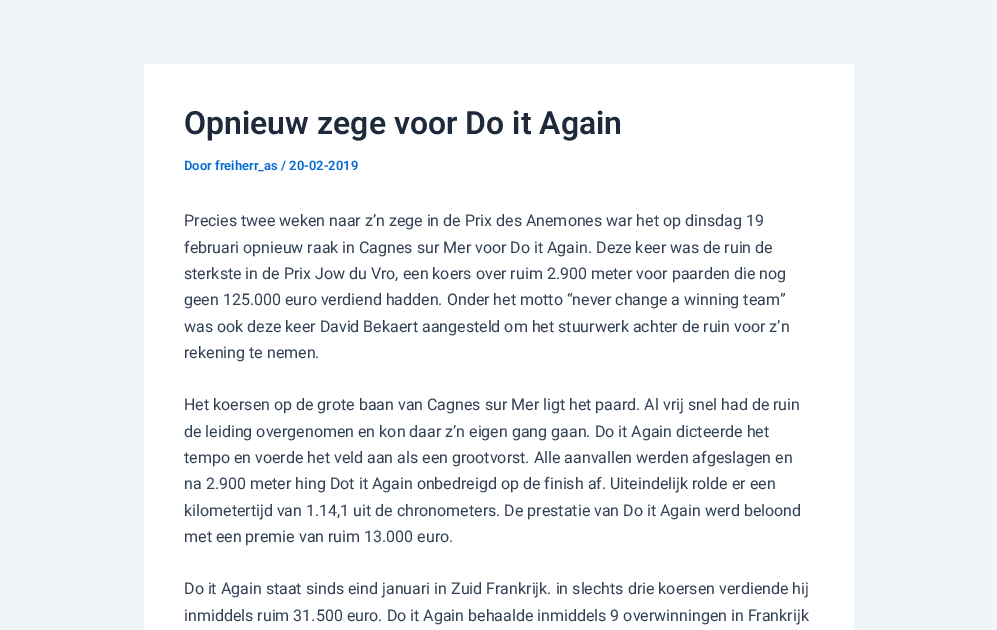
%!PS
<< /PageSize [997 630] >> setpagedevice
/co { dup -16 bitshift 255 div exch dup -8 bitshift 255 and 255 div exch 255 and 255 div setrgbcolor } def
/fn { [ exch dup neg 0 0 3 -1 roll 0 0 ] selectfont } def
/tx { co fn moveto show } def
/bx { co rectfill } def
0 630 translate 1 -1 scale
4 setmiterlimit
0 0 997 630 16#F0F5FA bx
144 64 710 566 16#FFFFFF bx
(Opnieuw zege voor Do it Again) 184 134 /Roboto-SemiBold 32 16#1E293B tx
(Door freiherr_as / 20-02-2019) 184 170 /Roboto-SemiBold 13 16#046BD2 tx
(Precies twee weken naar z’n zege in de Prix des Anemones war het op dinsdag 19) 184 226 /Roboto-Regular 16 16#334155 tx
(februari opnieuw raak in Cagnes sur Mer voor Do it Again. Deze keer was de ruin de) 184 253 /Roboto-Regular 16 16#334155 tx
(sterkste in de Prix Jow du Vro, een koers over ruim 2.900 meter voor paarden die nog) 184 279 /Roboto-Regular 16 16#334155 tx
(geen 125.000 euro verdiend hadden. Onder het motto “never change a winning team”) 184 305 /Roboto-Regular 16 16#334155 tx
(was ook deze keer David Bekaert aangesteld om het stuurwerk achter de ruin voor z’n) 184 332 /Roboto-Regular 16 16#334155 tx
(rekening te nemen.) 184 358 /Roboto-Regular 16 16#334155 tx
(Het koersen op de grote baan van Cagnes sur Mer ligt het paard. Al vrij snel had de ruin) 184 410 /Roboto-Regular 16 16#334155 tx
(de leiding overgenomen en kon daar z’n eigen gang gaan. Do it Again dicteerde het) 184 437 /Roboto-Regular 16 16#334155 tx
(tempo en voerde het veld aan als een grootvorst. Alle aanvallen werden afgeslagen en) 184 463 /Roboto-Regular 16 16#334155 tx
(na 2.900 meter hing Dot it Again onbedreigd op de finish af. Uiteindelijk rolde er een) 184 489 /Roboto-Regular 16 16#334155 tx
(kilometertijd van 1.14,1 uit de chronometers. De prestatie van Do it Again werd beloond) 184 516 /Roboto-Regular 16 16#334155 tx
(met een premie van ruim 13.000 euro.) 184 542 /Roboto-Regular 16 16#334155 tx
(Do it Again staat sinds eind januari in Zuid Frankrijk. in slechts drie koersen verdiende hij) 184 594 /Roboto-Regular 16 16#334155 tx
(inmiddels ruim 31.500 euro. Do it Again behaalde inmiddels 9 overwinningen in Frankrijk) 184 621 /Roboto-Regular 16 16#334155 tx
showpage
